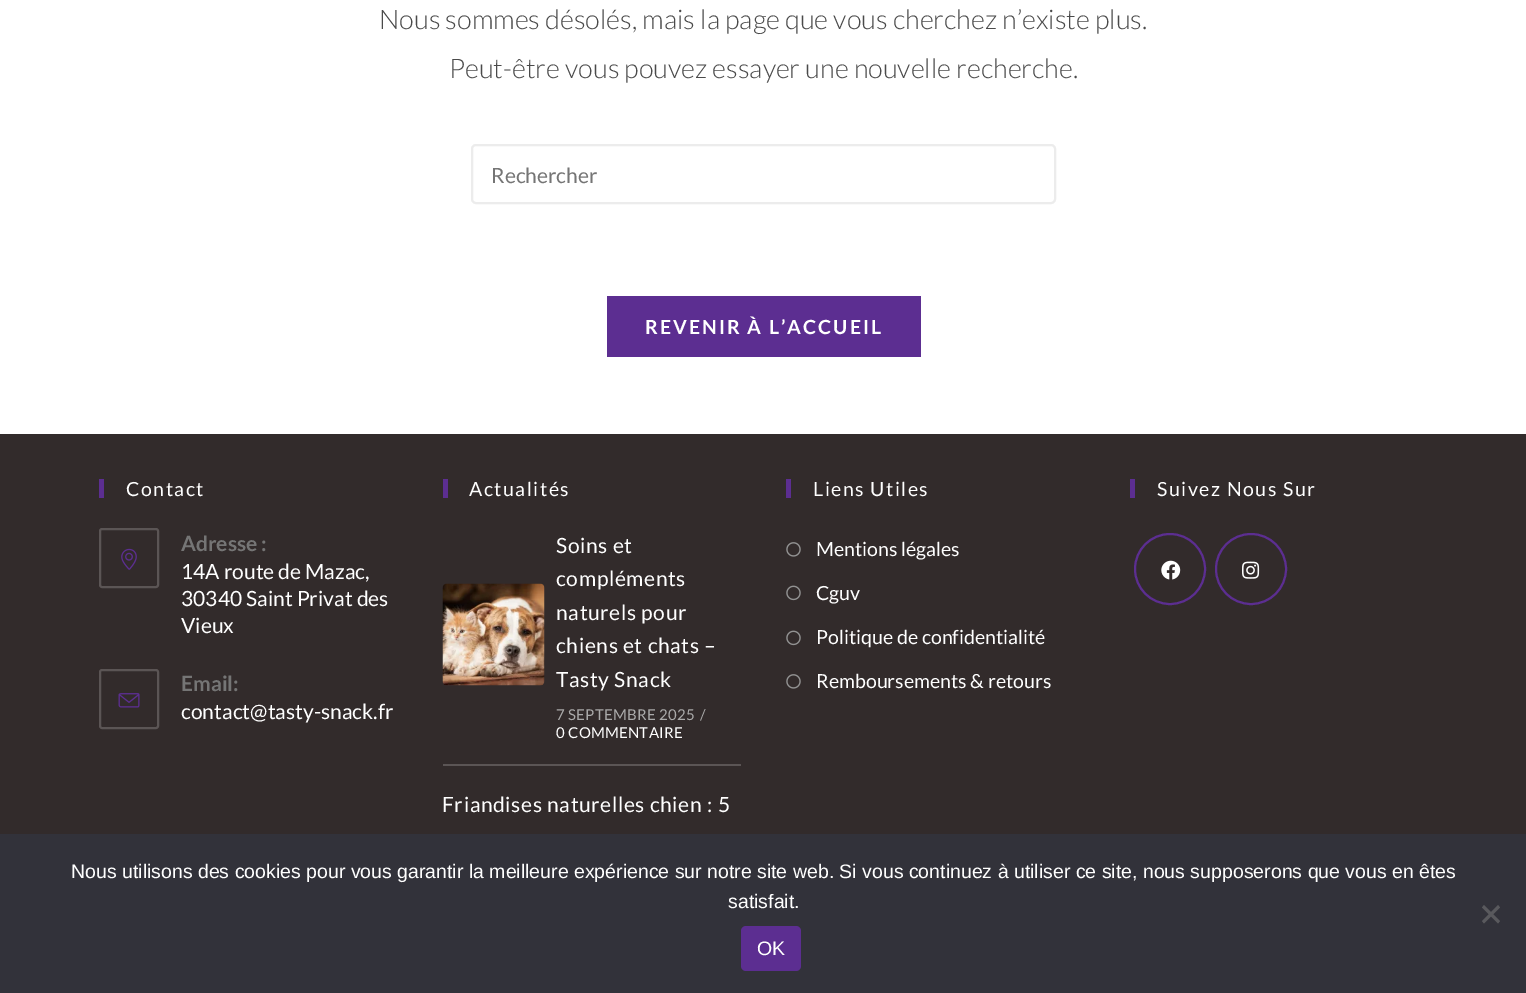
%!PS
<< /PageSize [1526 993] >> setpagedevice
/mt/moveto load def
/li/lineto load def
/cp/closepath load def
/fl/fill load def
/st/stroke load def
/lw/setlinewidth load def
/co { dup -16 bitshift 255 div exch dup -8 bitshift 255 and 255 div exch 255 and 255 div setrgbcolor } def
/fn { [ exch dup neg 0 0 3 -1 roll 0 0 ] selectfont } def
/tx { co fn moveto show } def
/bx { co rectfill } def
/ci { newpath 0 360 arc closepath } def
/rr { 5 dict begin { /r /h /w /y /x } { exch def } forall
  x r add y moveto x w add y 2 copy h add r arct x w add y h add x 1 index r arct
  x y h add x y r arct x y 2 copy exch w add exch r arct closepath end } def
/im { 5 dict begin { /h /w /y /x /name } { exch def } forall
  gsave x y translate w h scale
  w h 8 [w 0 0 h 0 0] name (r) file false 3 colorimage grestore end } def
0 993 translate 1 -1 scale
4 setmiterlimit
0 0 1526 993 16#FFFFFF bx
16#ECECEC co
2 lw
472 145 583 58 4 rr st
607 296 314 61 16#5C2E91 bx
0 434 1526 400 16#322B2B bx
99 479 5 19 16#5C2E91 bx
16#5B5555 co
100 529 58 58 2 rr st
(media/1.raw) 121 548 16 22 im
100 670 58 58 2 rr st
(media/2.raw) 118 693 22 15 im
443 479 5 19 16#5C2E91 bx
(media/3.raw) 442 583 103 103 im
443 764 298 2 16#5B5555 bx
786 479 5 19 16#5C2E91 bx
(media/4.raw) 786 542 15 15 im
(media/5.raw) 786 585 15 16 im
(media/5.raw) 786 630 15 16 im
(media/4.raw) 786 674 15 15 im
1130 479 5 19 16#5C2E91 bx
1170 569 35 ci st
(media/6.raw) 1161 560 20 20 im
1251 569 35 ci st
(media/7.raw) 1242 561 18 18 im
0 834 1526 159 16#32323A bx
16#59595D co
1498 905 mt 1500 907.5 li 1484 923.5 li 1482 921 li cp fl
1482 907.5 mt 1484 905 li 1500 921 li 1498 923.5 li cp fl
16#5C2E91 co
741 926 60 45 5 rr fl
(Nous sommes désolés, mais la page que vous cherchez n’existe plus.) 379 29 /Lato-Light 27 16#4A4A4A tx
(Peut-être vous pouvez essayer une nouvelle recherche.) 449 78 /Lato-Light 27 16#4A4A4A tx
(Rechercher) 491 183 /Lato-Regular 21 16#757575 tx
/Lato-Bold 19.5 fn
16#FFFFFF co
645 334 mt 2 0 (REVENIR À L’ACCUEIL) ashow
/Lato-Regular 19.5 fn
126 496 mt 1.5 0 (Contact) ashow
(Adresse :) 181 551 /Lato-Bold 21 16#757575 tx
(14A route de Mazac,) 181 579 /Lato-Regular 21 16#FFFFFF tx
(30340 Saint Privat des) 181 606 /Lato-Regular 21 16#FFFFFF tx
(Vieux) 181 633 /Lato-Regular 21 16#FFFFFF tx
(Email:) 181 691 /Lato-Bold 21 16#757575 tx
(contact@tasty-snack.fr) 181 719 /Lato-Regular 21 16#FFFFFF tx
/Lato-Regular 19.5 fn
469 496 mt 1.5 0 (Actualités) ashow
/Lato-Regular 21 fn
556 553 mt .6 0 (Soins et) ashow
556 586 mt .6 0 (compléments) ashow
556 620 mt .6 0 (naturels pour) ashow
556 653 mt .6 0 (chiens et chats –) ashow
556 687 mt .6 0 (Tasty Snack) ashow
/Lato-Regular 15 fn
16#AAAAAA co
556 720 mt .25 0 (7 SEPTEMBRE 2025) ashow
700 720 mt .25 0 (/) ashow
16#FFFFFF co
556 738 mt .25 0 (0 COMMENTAIRE) ashow
/Lato-Regular 21 fn
442 812 mt .6 0 (Friandises naturelles chien : 5) ashow
/Lato-Regular 19.5 fn
813 496 mt 1.5 0 (Liens Utiles) ashow
(Mentions légales) 816 556 /Lato-Regular 19.5 16#FFFFFF tx
(Cguv) 816 600 /Lato-Regular 19.5 16#FFFFFF tx
(Politique de confidentialité) 816 644 /Lato-Regular 19.5 16#FFFFFF tx
(Remboursements & retours) 816 688 /Lato-Regular 19.5 16#FFFFFF tx
1157 496 mt 1.5 0 (Suivez Nous Sur) ashow
(Nous utilisons des cookies pour vous garantir la meilleure expérience sur notre site web. Si vous continuez à utiliser ce site, nous supposerons que vous en êtes) 71 878 /LiberationSans-Regular 19.5 16#FFFFFF tx
(satisfait.) 728 908 /LiberationSans-Regular 19.5 16#FFFFFF tx
(OK) 757 955 /LiberationSans-Regular 19.5 16#FFFFFF tx
showpage
